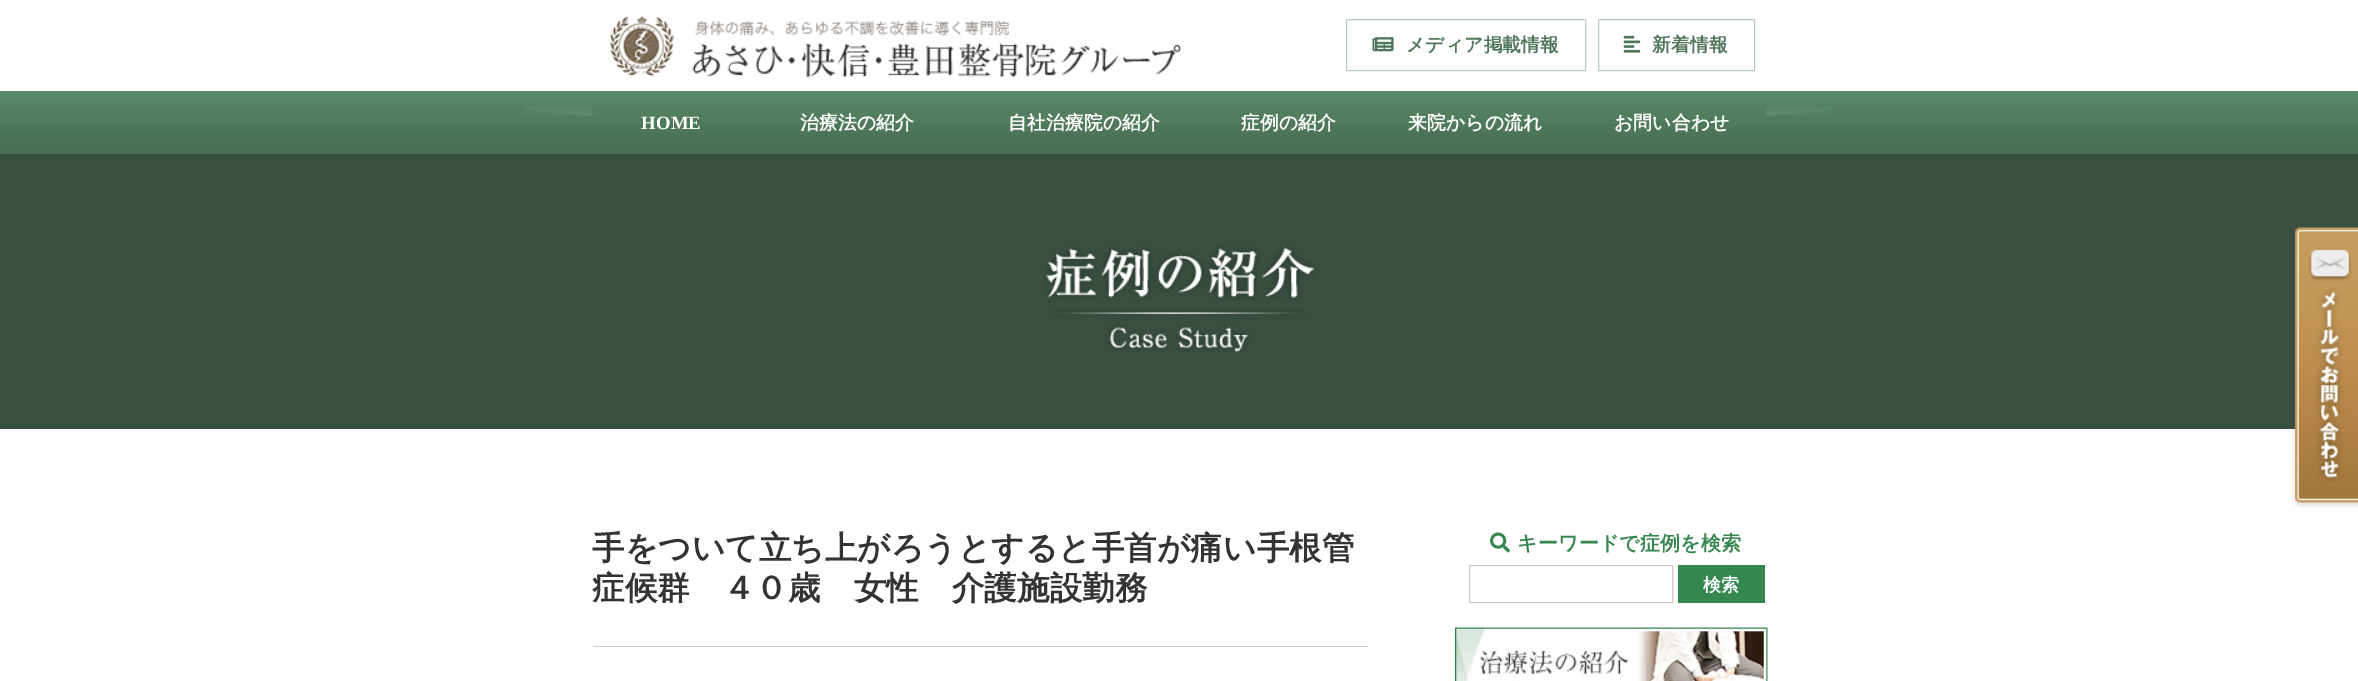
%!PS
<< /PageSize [2358 681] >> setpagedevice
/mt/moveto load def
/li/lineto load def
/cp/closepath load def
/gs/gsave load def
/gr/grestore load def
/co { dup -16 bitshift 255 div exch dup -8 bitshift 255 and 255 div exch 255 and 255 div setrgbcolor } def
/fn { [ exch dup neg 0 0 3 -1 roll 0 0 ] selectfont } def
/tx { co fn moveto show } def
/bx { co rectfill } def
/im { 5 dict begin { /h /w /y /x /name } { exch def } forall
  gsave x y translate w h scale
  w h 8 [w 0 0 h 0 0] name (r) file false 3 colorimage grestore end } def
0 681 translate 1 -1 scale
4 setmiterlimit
0 0 2358 681 16#FFFFFF bx
(media/1.raw) 609 16 573 62 im
16#BBCDC0 co
1346.5 19.5 239 51 rectstroke
(media/2.raw) 1372 37 22 15 im
1598.5 19.5 156 51 rectstroke
(media/3.raw) 1623 35 18 18 im
gs 0 91 mt 2358 91 li 2358 154 li 0 154 li cp clip newpath
<< /ShadingType 2 /ColorSpace /DeviceRGB /Coords [1179 91 1179 154] /Extend [true true] /Function << /FunctionType 3 /Domain [0 1] /Functions [<< /FunctionType 2 /Domain [0 1] /C0 [.353 .545 .416] /C1 [.282 .431 .329] /N 1 >> << /FunctionType 2 /Domain [0 1] /C0 [.282 .431 .329] /C1 [.282 .431 .329] /N 1 >>] /Bounds [.88] /Encode [0 1 0 1] >> >> shfill gr
(media/4.raw) 526 107 67 10 im
(media/5.raw) 1766 107 66 9 im
0 154 2358 275 16#394F40 bx
(media/6.raw) 2292 227 66 281 im
(media/7.raw) 1045 246 269 106 im
593 646 775 1 16#CCCCCC bx
(media/8.raw) 1490 532 20 21 im
1469.5 565.5 203 37 rectstroke
1678 565 87 38 16#35864F bx
(media/9.raw) 1455 627 313 54 im
/WenQuanYiZenHei-Bold 18.75 fn
16#4F755B co
1406 51 mt .2 0 (メディア掲載情報) ashow
1652 51 mt .2 0 (新着情報) ashow
/LiberationSerif-Bold 18.75 fn
16#FFFFFF co
641 129 mt .2 0 (HOME) ashow
/WenQuanYiZenHei-Bold 18.75 fn
800 129 mt .2 0 (治療法の紹介) ashow
1008 129 mt .2 0 (自社治療院の紹介) ashow
1241 129 mt .2 0 (症例の紹介) ashow
1408 129 mt .2 0 (来院からの流れ) ashow
1614 129 mt .2 0 (お問い合わせ) ashow
/WenQuanYiZenHei-Bold 32.5 fn
16#333333 co
592 559 mt .2 0 (手をついて立ち上がろうとすると手首が痛い手根管) ashow
592 599 mt .2 0 (症候群　４０歳　女性　介護施設勤務) ashow
/WenQuanYiZenHei-Bold 20 fn
16#35864F co
1517 550 mt .2 0 (キーワードで症例を検索) ashow
(検索) 1703 591 /WenQuanYiZenHei-Bold 18 16#FFFFFF tx
showpage
